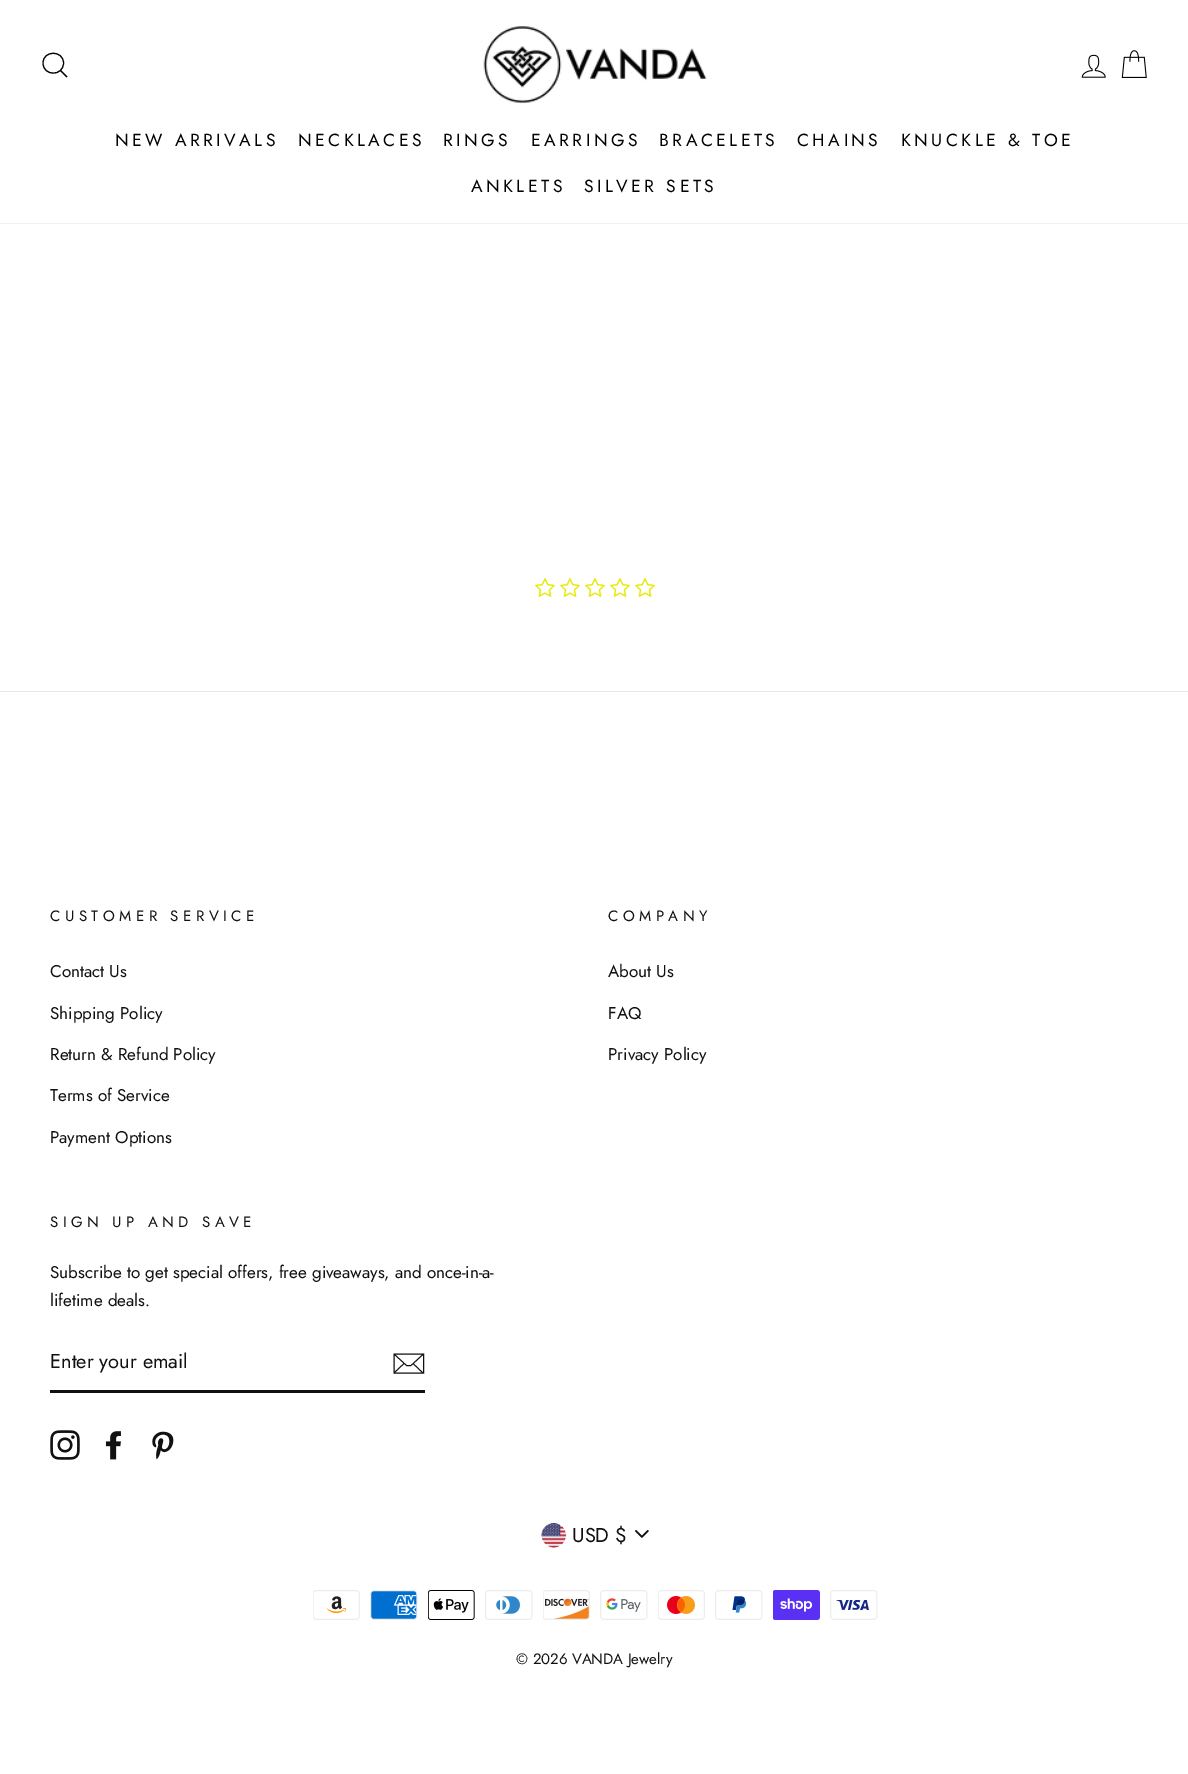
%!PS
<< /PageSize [1188 1774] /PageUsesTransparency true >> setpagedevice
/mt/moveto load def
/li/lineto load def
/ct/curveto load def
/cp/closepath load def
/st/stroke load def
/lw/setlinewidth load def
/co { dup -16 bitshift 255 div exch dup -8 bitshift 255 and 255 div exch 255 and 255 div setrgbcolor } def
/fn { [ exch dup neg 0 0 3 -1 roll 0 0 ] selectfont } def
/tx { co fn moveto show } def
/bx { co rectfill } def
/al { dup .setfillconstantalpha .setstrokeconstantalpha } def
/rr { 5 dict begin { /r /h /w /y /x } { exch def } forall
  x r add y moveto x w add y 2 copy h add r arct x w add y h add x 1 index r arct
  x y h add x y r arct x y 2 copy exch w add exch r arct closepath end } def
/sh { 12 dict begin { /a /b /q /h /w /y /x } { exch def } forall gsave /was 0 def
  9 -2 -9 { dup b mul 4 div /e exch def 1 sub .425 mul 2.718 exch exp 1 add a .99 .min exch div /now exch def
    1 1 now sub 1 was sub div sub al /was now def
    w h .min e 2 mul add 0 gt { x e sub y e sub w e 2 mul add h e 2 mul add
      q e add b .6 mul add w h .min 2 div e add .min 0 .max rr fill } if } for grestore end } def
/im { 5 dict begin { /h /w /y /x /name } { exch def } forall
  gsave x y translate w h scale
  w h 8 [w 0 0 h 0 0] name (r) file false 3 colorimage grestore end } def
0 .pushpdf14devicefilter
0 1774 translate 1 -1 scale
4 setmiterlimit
0 0 1188 1774 16#FFFFFF bx
16#000000 co
0 0 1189 223 0 .5 .2 sh
0 0 1188 223 16#FFFFFF bx
16#000000 co
1.1 lw
63.5 63 mt 63.5 76.5 43 76.5 43 63 ct 43 50 63.5 50 63.5 63 ct cp 67 77 mt 60.5 70.5 li st
(media/1.raw) 483 26 224 78 im
(media/2.raw) 1081 54 25 24 im
(media/3.raw) 1121 50 26 28 im
(media/4.raw) 535 578 20 19 im
(media/4.raw) 560 578 20 19 im
(media/4.raw) 585 578 20 19 im
(media/4.raw) 610 578 20 19 im
(media/4.raw) 635 578 20 19 im
0 691 1188 1 16#E8E8E1 bx
50 1390 375 3 16#111111 bx
.9 lw
423.5 1373 mt 394 1373 li 394 1354 li 423.5 1354 li cp 394 1354 mt 406.5 1365.5 li 411 1365.5 li 423.5 1354 li 404 1363.5 mt 394.5 1372.5 li 423 1373 mt 413 1363.5 li st
(media/5.raw) 50 1430 30 30 im
(media/6.raw) 105 1431 16 29 im
(media/7.raw) 152 1431 22 29 im
(media/8.raw) 635 1530 14 8 im
(media/9.raw) 541 1522 26 26 im
(media/10.raw) 313 1590 47 30 im
(media/11.raw) 370 1590 48 30 im
(media/12.raw) 428 1590 47 30 im
(media/13.raw) 485 1590 48 30 im
(media/14.raw) 543 1590 47 30 im
(media/15.raw) 600 1590 48 30 im
(media/16.raw) 658 1590 47 30 im
(media/17.raw) 715 1590 48 30 im
(media/18.raw) 773 1590 47 30 im
(media/19.raw) 830 1590 48 30 im
/Jost-Regular 17.5 fn
16#000000 co
115 146 mt 3.5 0 (NEW ARRIVALS) ashow
298 146 mt 3.5 0 (NECKLACES) ashow
443 146 mt 3.5 0 (RINGS) ashow
531 146 mt 3.5 0 (EARRINGS) ashow
659 146 mt 3.5 0 (BRACELETS) ashow
797 146 mt 3.5 0 (CHAINS) ashow
901 146 mt 3.5 0 (KNUCKLE & TOE) ashow
471 192 mt 3.5 0 (ANKLETS) ashow
584 192 mt 3.5 0 (SILVER SETS) ashow
/Jost-Regular 15 fn
16#111111 co
50 921 mt 4.5 0 (CUSTOMER SERVICE) ashow
(Contact Us) 50 977 /Jost-Regular 17 16#111111 tx
(Shipping Policy) 50 1019 /Jost-Regular 17 16#111111 tx
(Return & Refund Policy) 50 1060 /Jost-Regular 17 16#111111 tx
(Terms of Service) 50 1101 /Jost-Regular 17 16#111111 tx
(Payment Options) 50 1143 /Jost-Regular 17 16#111111 tx
/Jost-Regular 15 fn
608 921 mt 4.5 0 (COMPANY) ashow
(About Us) 608 977 /Jost-Regular 17 16#111111 tx
(FAQ) 608 1019 /Jost-Regular 17 16#111111 tx
(Privacy Policy) 608 1060 /Jost-Regular 17 16#111111 tx
/Jost-Regular 15 fn
50 1227 mt 4.5 0 (SIGN UP AND SAVE) ashow
(Subscribe to get special offers, free giveaways, and once-in-a-) 50 1278 /Jost-Regular 17 16#111111 tx
(lifetime deals.) 50 1306 /Jost-Regular 17 16#111111 tx
(Enter your email) 50 1368 /Jost-Regular 20 16#111111 tx
(USD $) 572 1542 /Jost-Regular 20 16#111111 tx
(© 2026 VANDA Jewelry) 516 1664 /Jost-Regular 15 16#111111 tx
.poppdf14devicefilter showpage
